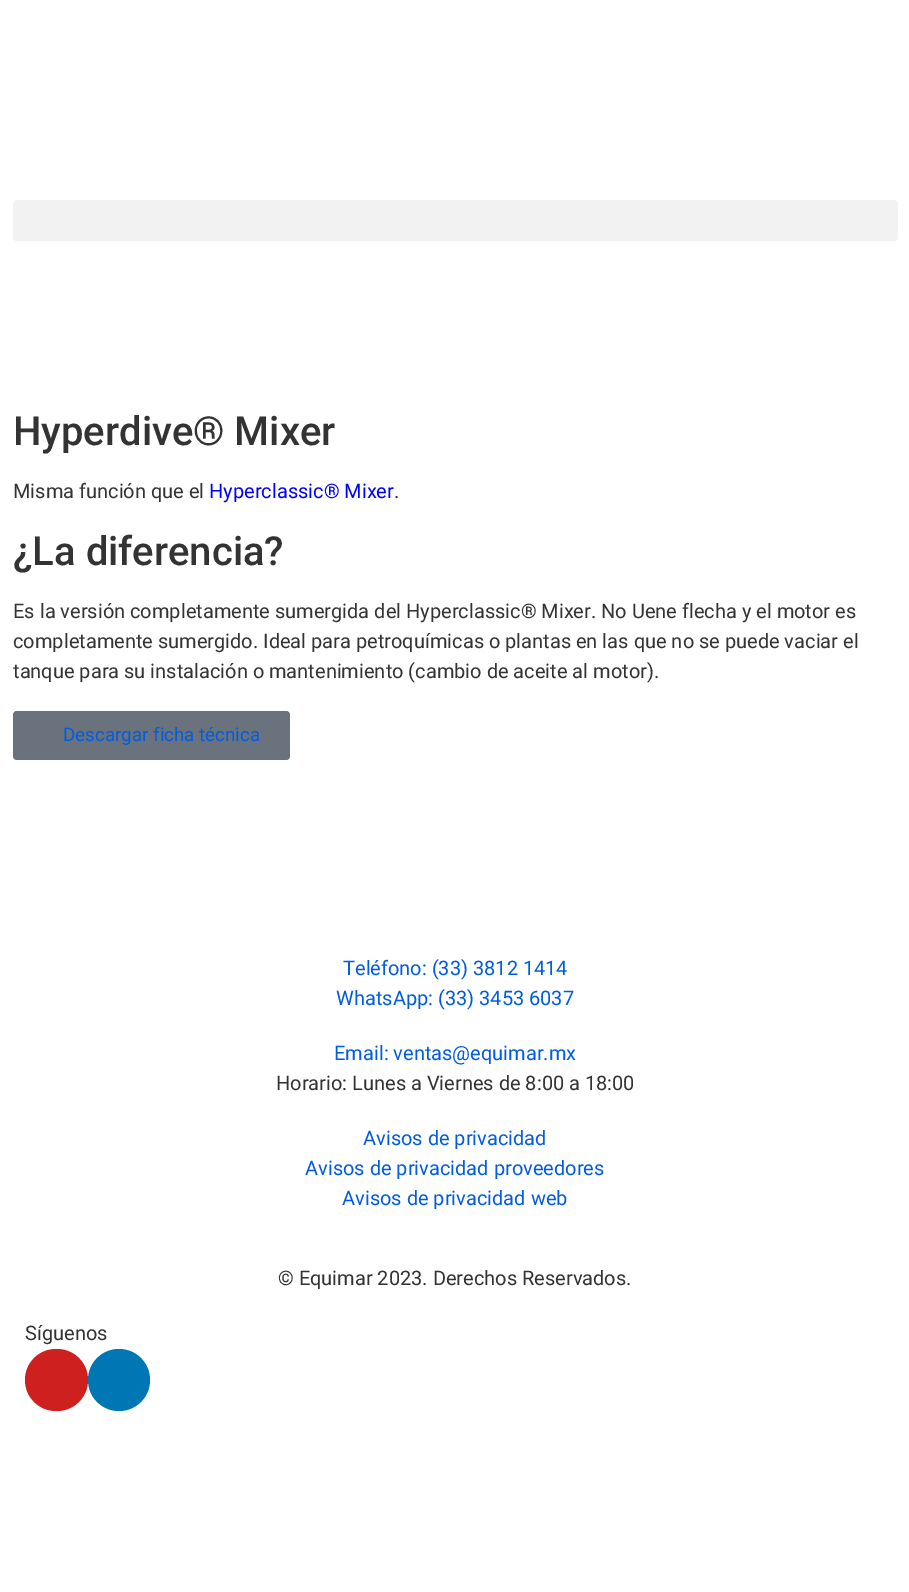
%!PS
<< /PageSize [909 1592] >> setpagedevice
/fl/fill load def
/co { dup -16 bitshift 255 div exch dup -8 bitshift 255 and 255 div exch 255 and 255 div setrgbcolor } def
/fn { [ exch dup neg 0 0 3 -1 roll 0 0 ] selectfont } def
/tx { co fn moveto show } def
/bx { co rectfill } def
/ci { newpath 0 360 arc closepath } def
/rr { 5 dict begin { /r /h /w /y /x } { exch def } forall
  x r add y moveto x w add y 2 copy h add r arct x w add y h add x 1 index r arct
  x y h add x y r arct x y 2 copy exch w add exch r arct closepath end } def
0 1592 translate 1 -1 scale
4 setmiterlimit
0 0 909 1592 16#FFFFFF bx
16#F2F2F2 co
13 200 885 41 4 rr fl
16#69727D co
13 711 277 49 4 rr fl
16#CD201F co
25 1349 63 62 31 rr fl
16#0077B5 co
119 1380 31 ci fl
(Hyperdive® Mixer) 13 445 /Roboto-Medium 40 16#333333 tx
(Misma función que el) 13 498 /Roboto-Regular 20 16#333333 tx
(Hyperclassic® Mixer) 209 498 /Roboto-Regular 20 16#0000FF tx
(.) 394 498 /Roboto-Regular 20 16#333333 tx
(¿La diferencia?) 13 565 /Roboto-Medium 40 16#333333 tx
(Es la versión completamente sumergida del Hyperclassic® Mixer. No Uene flecha y el motor es) 13 618 /Roboto-Regular 20 16#333333 tx
(completamente sumergido. Ideal para petroquímicas o plantas en las que no se puede vaciar el) 13 648 /Roboto-Regular 20 16#333333 tx
(tanque para su instalación o mantenimiento \(cambio de aceite al motor\).) 13 678 /Roboto-Regular 20 16#333333 tx
(Descargar ficha técnica) 63 741 /Roboto-Regular 18.75 16#015CE1 tx
(Teléfono: \(33\) 3812 1414) 343 975 /Roboto-Regular 20 16#015CE1 tx
(WhatsApp: \(33\) 3453 6037) 336 1005 /Roboto-Regular 20 16#015CE1 tx
(Email: ventas@equimar.mx) 334 1060 /Roboto-Regular 20 16#015CE1 tx
(Horario: Lunes a Viernes de 8:00 a 18:00) 276 1090 /Roboto-Regular 20 16#333333 tx
(Avisos de privacidad) 363 1145 /Roboto-Regular 20 16#015CE1 tx
(Avisos de privacidad proveedores) 305 1175 /Roboto-Regular 20 16#015CE1 tx
(Avisos de privacidad web) 342 1205 /Roboto-Regular 20 16#015CE1 tx
(© Equimar 2023. Derechos Reservados.) 278 1285 /Roboto-Regular 20 16#333333 tx
(Síguenos) 25 1340 /Roboto-Regular 20 16#333333 tx
showpage
